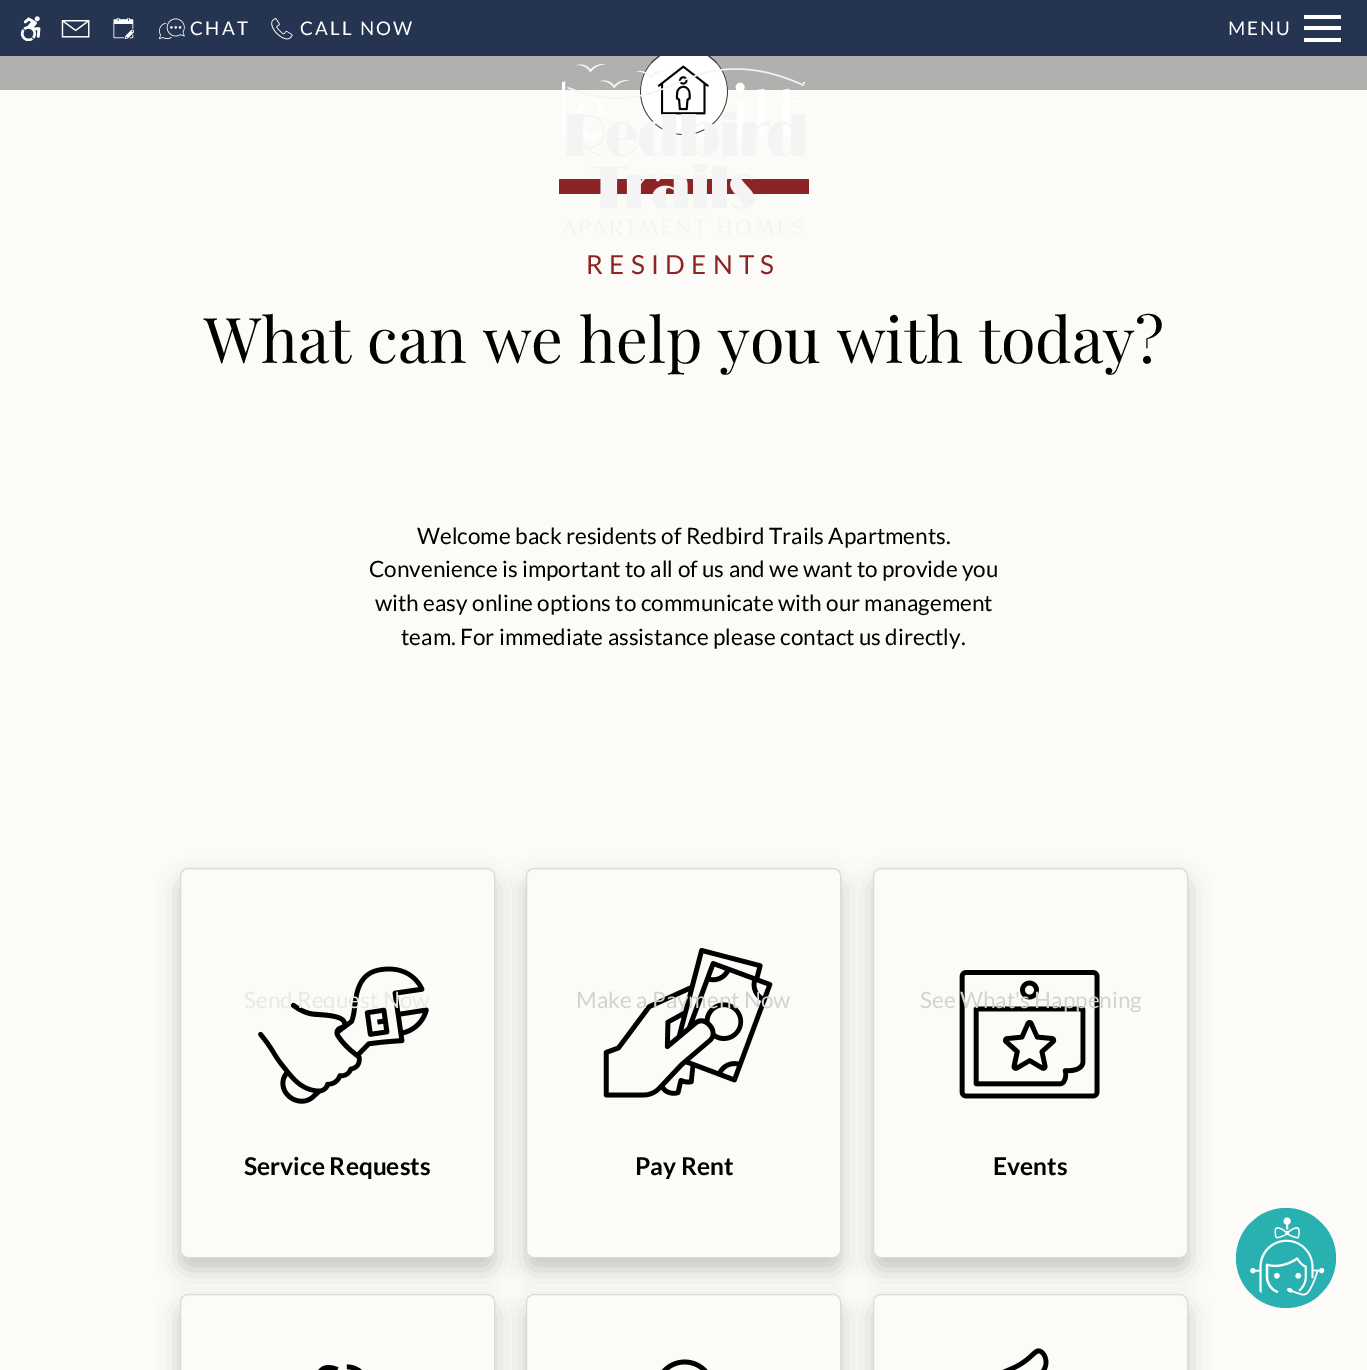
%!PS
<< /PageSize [1367 1370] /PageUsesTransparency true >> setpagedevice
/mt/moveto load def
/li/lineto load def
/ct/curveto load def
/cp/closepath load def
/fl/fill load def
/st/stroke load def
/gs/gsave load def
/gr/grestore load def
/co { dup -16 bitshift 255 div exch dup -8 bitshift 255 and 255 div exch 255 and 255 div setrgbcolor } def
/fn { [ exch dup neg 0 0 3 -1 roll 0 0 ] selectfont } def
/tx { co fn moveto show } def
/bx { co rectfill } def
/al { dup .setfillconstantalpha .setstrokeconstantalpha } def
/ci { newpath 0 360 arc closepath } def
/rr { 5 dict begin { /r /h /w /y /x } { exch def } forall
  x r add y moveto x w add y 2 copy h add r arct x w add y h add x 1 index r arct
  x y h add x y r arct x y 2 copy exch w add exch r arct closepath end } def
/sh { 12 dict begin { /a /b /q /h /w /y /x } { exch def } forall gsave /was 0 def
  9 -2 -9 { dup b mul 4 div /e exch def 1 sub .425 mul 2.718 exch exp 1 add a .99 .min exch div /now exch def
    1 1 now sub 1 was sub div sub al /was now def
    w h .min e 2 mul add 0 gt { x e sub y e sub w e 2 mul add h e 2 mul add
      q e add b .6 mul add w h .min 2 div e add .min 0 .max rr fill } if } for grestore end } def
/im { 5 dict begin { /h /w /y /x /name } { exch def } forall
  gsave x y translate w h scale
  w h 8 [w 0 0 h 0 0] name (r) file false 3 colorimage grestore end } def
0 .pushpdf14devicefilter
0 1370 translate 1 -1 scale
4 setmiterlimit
0 0 1367 1370 16#FCFBF8 bx
0 56 1367 34 16#B0B0AE bx
16#FFFFFF co
640.5 48.5 87 86 43 rr gs fl gr
16#333333 co
st
0 0 1367 56 16#253551 bx
(media/1.raw) 20 16 21 25 im
(media/2.raw) 61 20 29 18 im
(media/3.raw) 113 18 21 21 im
(media/4.raw) 159 18 26 22 im
(media/5.raw) 271 18 22 22 im
1304 15 37 4 16#FFFFFF bx
1304 26 37 4 16#FFFFFF bx
1304 38 37 4 16#FFFFFF bx
(media/7.raw) 657 65 52 50 im
559 179 250 15 16#8C2324 bx
(media/6.raw) 562 63 243 172 im
16#000000 co
180 880 315 390 8 11 .2 sh
16#FCFBF8 co
180.5 868.5 314 389 7.5 rr gs fl gr
16#DBDAD8 co
st
(media/8.raw) 258 966 171 138 im
16#000000 co
526 880 315 390 8 11 .2 sh
16#FCFBF8 co
526.5 868.5 314 389 7.5 rr gs fl gr
16#DBDAD8 co
st
(media/9.raw) 603 948 170 150 im
16#000000 co
873 880 315 390 8 11 .2 sh
16#FCFBF8 co
873.5 868.5 314 389 7.5 rr gs fl gr
16#DBDAD8 co
st
(media/10.raw) 959 970 141 129 im
gs
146 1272 mt 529 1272 li 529 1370 li 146 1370 li cp 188 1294 mt 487 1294 li 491.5 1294 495 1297.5 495 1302 ct 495 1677 li 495 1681.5 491.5 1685 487 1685 ct 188 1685 li 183.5 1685 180 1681.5 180 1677 ct 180 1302 li 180 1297.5 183.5 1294 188 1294 ct cp eoclip newpath
16#000000 co
180 1306 315 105 8 11 .2 sh
gr
180.5 1294.5 314 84 7.5 rr st
(media/11.raw) 318 1364 44 6 im
16#000000 co
526 1306 315 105 8 11 .2 sh
16#FCFBF8 co
526.5 1294.5 314 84 7.5 rr gs fl gr
16#DBDAD8 co
st
(media/12.raw) 661 1359 47 11 im
16#000000 co
873 1306 315 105 8 11 .2 sh
16#FCFBF8 co
873.5 1294.5 314 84 7.5 rr gs fl gr
16#DBDAD8 co
st
(media/13.raw) 1002 1348 47 22 im
16#29B0B0 co
1286 1258 50 ci fl
(media/14.raw) 1250 1217 75 79 im
/Lato-Regular 18.75 fn
16#FFFFFF co
190 35 mt 2.25 0 (CHAT) ashow
300 35 mt 2.25 0 (CALL NOW) ashow
1228 35 mt 2 0 (MENU) ashow
/Lato-Regular 26.25 fn
16#8C2324 co
586 274 mt 6.25 0 (RESIDENTS) ashow
(What can we help you with today?) 204 363 /PlayfairDisplay-Regular 63 16#000000 tx
(Welcome back residents of Redbird Trails Apartments.) 417 544 /Lato-Regular 22.5 16#000000 tx
(Convenience is important to all of us and we want to provide you) 369 577 /Lato-Regular 22.5 16#000000 tx
(with easy online options to communicate with our management) 375 611 /Lato-Regular 22.5 16#000000 tx
(team. For immediate assistance please contact us directly.) 401 645 /Lato-Regular 22.5 16#000000 tx
(Send Request Now) 244 1008 /Lato-Regular 22.5 16#E9E8E5 tx
(Service Requests) 244 1175 /Lato-Bold 24.5 16#000000 tx
(Make a Payment Now) 576 1008 /Lato-Regular 22.5 16#D3D2D0 tx
(Pay Rent) 635 1175 /Lato-Bold 24.5 16#000000 tx
(See What's Happening) 920 1008 /Lato-Regular 22.5 16#D3D2D0 tx
(Events) 993 1175 /Lato-Bold 24.5 16#000000 tx
.poppdf14devicefilter showpage
